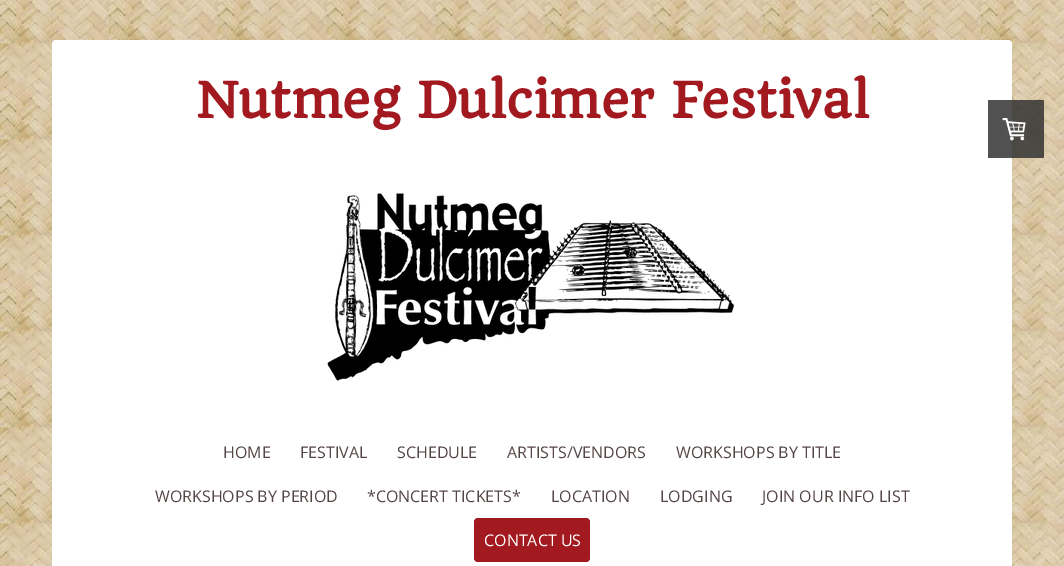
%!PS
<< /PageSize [1064 566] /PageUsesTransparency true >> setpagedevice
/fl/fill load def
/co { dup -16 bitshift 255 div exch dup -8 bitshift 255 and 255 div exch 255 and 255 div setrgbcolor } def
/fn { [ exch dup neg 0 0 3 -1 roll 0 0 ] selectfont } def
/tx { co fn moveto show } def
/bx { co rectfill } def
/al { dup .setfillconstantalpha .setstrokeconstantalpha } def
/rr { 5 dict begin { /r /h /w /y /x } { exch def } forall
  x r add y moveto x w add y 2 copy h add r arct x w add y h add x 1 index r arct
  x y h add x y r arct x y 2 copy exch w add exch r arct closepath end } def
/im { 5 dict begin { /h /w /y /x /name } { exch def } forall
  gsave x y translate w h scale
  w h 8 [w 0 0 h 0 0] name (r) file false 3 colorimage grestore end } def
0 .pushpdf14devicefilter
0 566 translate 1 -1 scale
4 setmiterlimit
0 0 1064 566 16#FFFFFF bx
(media/1.raw) 0 0 1064 566 im
52 40 960 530 4 rr fl
(media/2.raw) 327 193 408 188 im
16#A21A20 co
474 518 116 44 4 rr fl
0.85 al
16#333333 co
988 100 56 58 1 rr fl
1 al
(media/3.raw) 1002 118 24 23 im
(Nutmeg Dulcimer Festival) 196 118 /Quando-Bold 48 16#A21A20 tx
(HOME) 223 458 /OpenSans-Regular 16 16#544645 tx
(FESTIVAL) 300 458 /OpenSans-Regular 16 16#544645 tx
(SCHEDULE) 397 458 /OpenSans-Regular 16 16#544645 tx
(ARTISTS/VENDORS) 507 458 /OpenSans-Regular 16 16#544645 tx
(WORKSHOPS BY TITLE) 676 458 /OpenSans-Regular 16 16#544645 tx
(WORKSHOPS BY PERIOD) 155 502 /OpenSans-Regular 16 16#544645 tx
(*CONCERT TICKETS*) 367 502 /OpenSans-Regular 16 16#544645 tx
(LOCATION) 551 502 /OpenSans-Regular 16 16#544645 tx
(LODGING) 660 502 /OpenSans-Regular 16 16#544645 tx
(JOIN OUR INFO LIST) 762 502 /OpenSans-Regular 16 16#544645 tx
(CONTACT US) 484 546 /OpenSans-Regular 16 16#FFFFFF tx
.poppdf14devicefilter showpage
